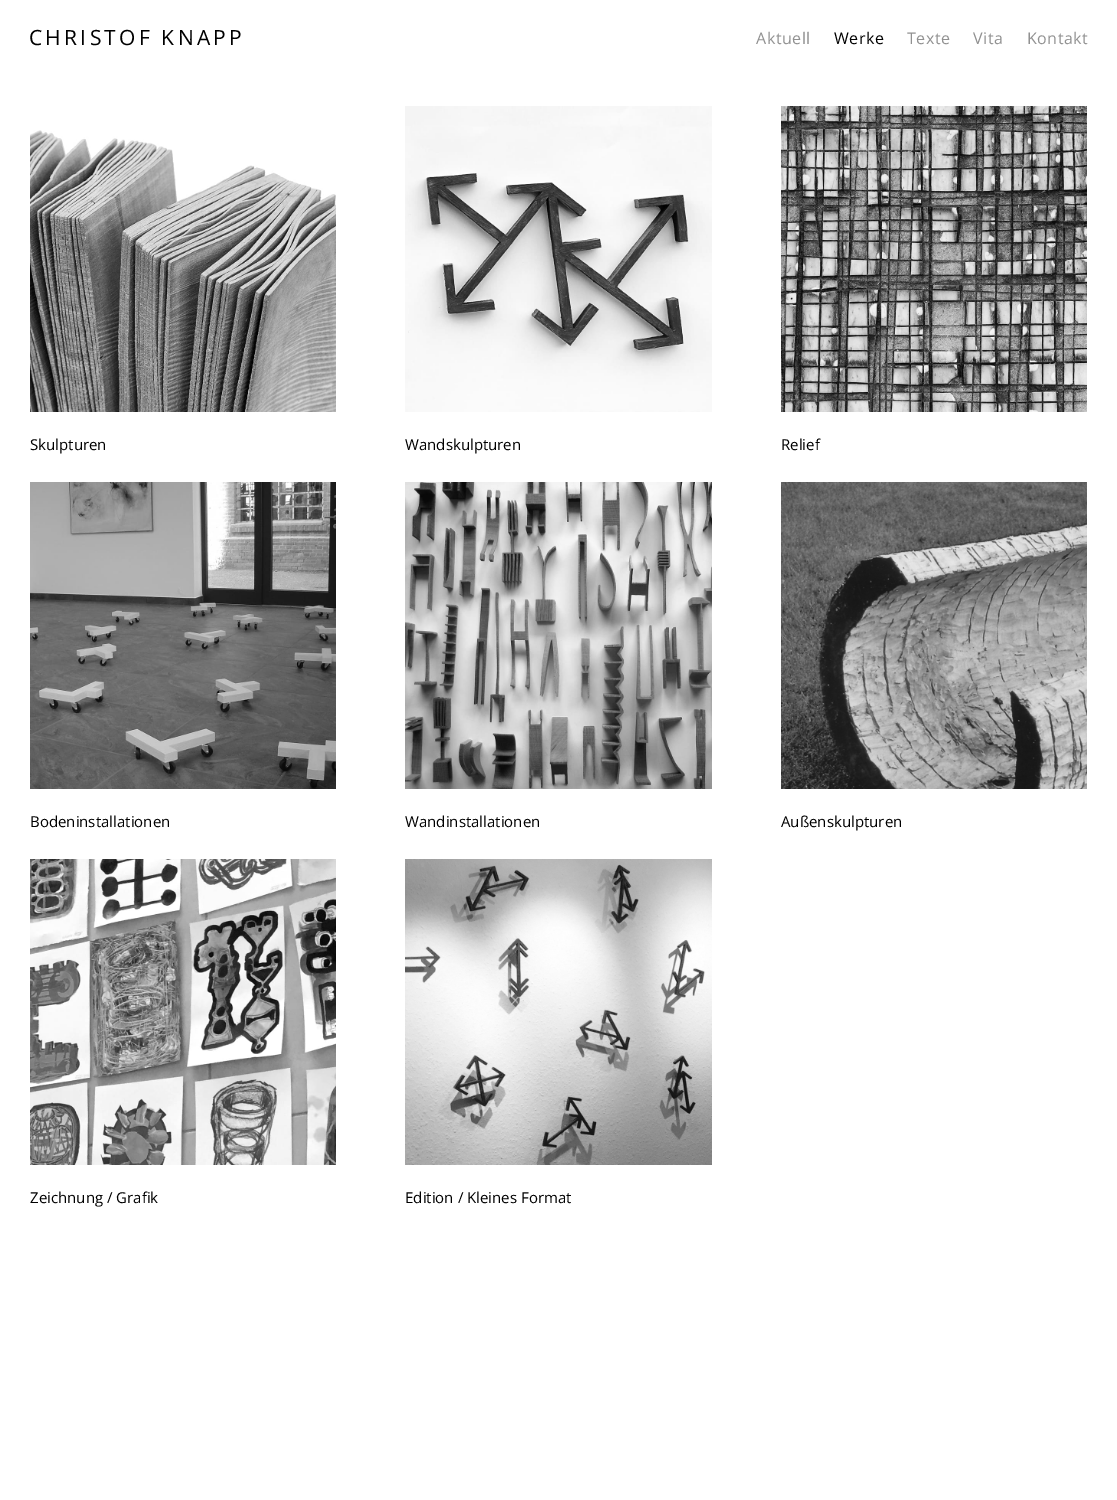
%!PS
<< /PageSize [1117 1500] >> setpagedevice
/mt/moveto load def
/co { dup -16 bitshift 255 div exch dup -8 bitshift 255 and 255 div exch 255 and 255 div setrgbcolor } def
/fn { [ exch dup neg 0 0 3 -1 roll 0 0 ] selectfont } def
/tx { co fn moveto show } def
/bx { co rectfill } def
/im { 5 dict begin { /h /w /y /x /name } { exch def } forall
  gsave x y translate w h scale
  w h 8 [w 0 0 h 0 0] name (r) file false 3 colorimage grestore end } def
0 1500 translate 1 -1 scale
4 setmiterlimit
0 0 1117 1500 16#FFFFFF bx
(media/1.raw) 30 130 306 282 im
(media/2.raw) 405 106 307 306 im
(media/3.raw) 781 106 306 306 im
(media/4.raw) 30 482 306 307 im
(media/5.raw) 405 482 307 307 im
(media/6.raw) 781 482 306 307 im
(media/7.raw) 30 859 306 306 im
(media/8.raw) 405 859 307 306 im
/OpenSans-Regular 21 fn
16#000000 co
29 45 mt 3.25 0 (CHRISTOF KNAPP) ashow
/OpenSans-Regular 16 fn
16#919191 co
756 44 mt .5 0 (Aktuell) ashow
16#000000 co
834 44 mt .5 0 (Werke) ashow
16#919191 co
907 44 mt .5 0 (Texte) ashow
973 44 mt .5 0 (Vita) ashow
1027 44 mt .5 0 (Kontakt) ashow
(Skulpturen) 30 450 /OpenSans-Regular 15 16#000000 tx
(Wandskulpturen) 405 450 /OpenSans-Regular 15 16#000000 tx
(Relief) 781 450 /OpenSans-Regular 15 16#000000 tx
(Bodeninstallationen) 30 827 /OpenSans-Regular 15 16#000000 tx
(Wandinstallationen) 405 827 /OpenSans-Regular 15 16#000000 tx
(Außenskulpturen) 781 827 /OpenSans-Regular 15 16#000000 tx
(Zeichnung / Grafik) 30 1203 /OpenSans-Regular 15 16#000000 tx
(Edition / Kleines Format) 405 1203 /OpenSans-Regular 15 16#000000 tx
showpage
